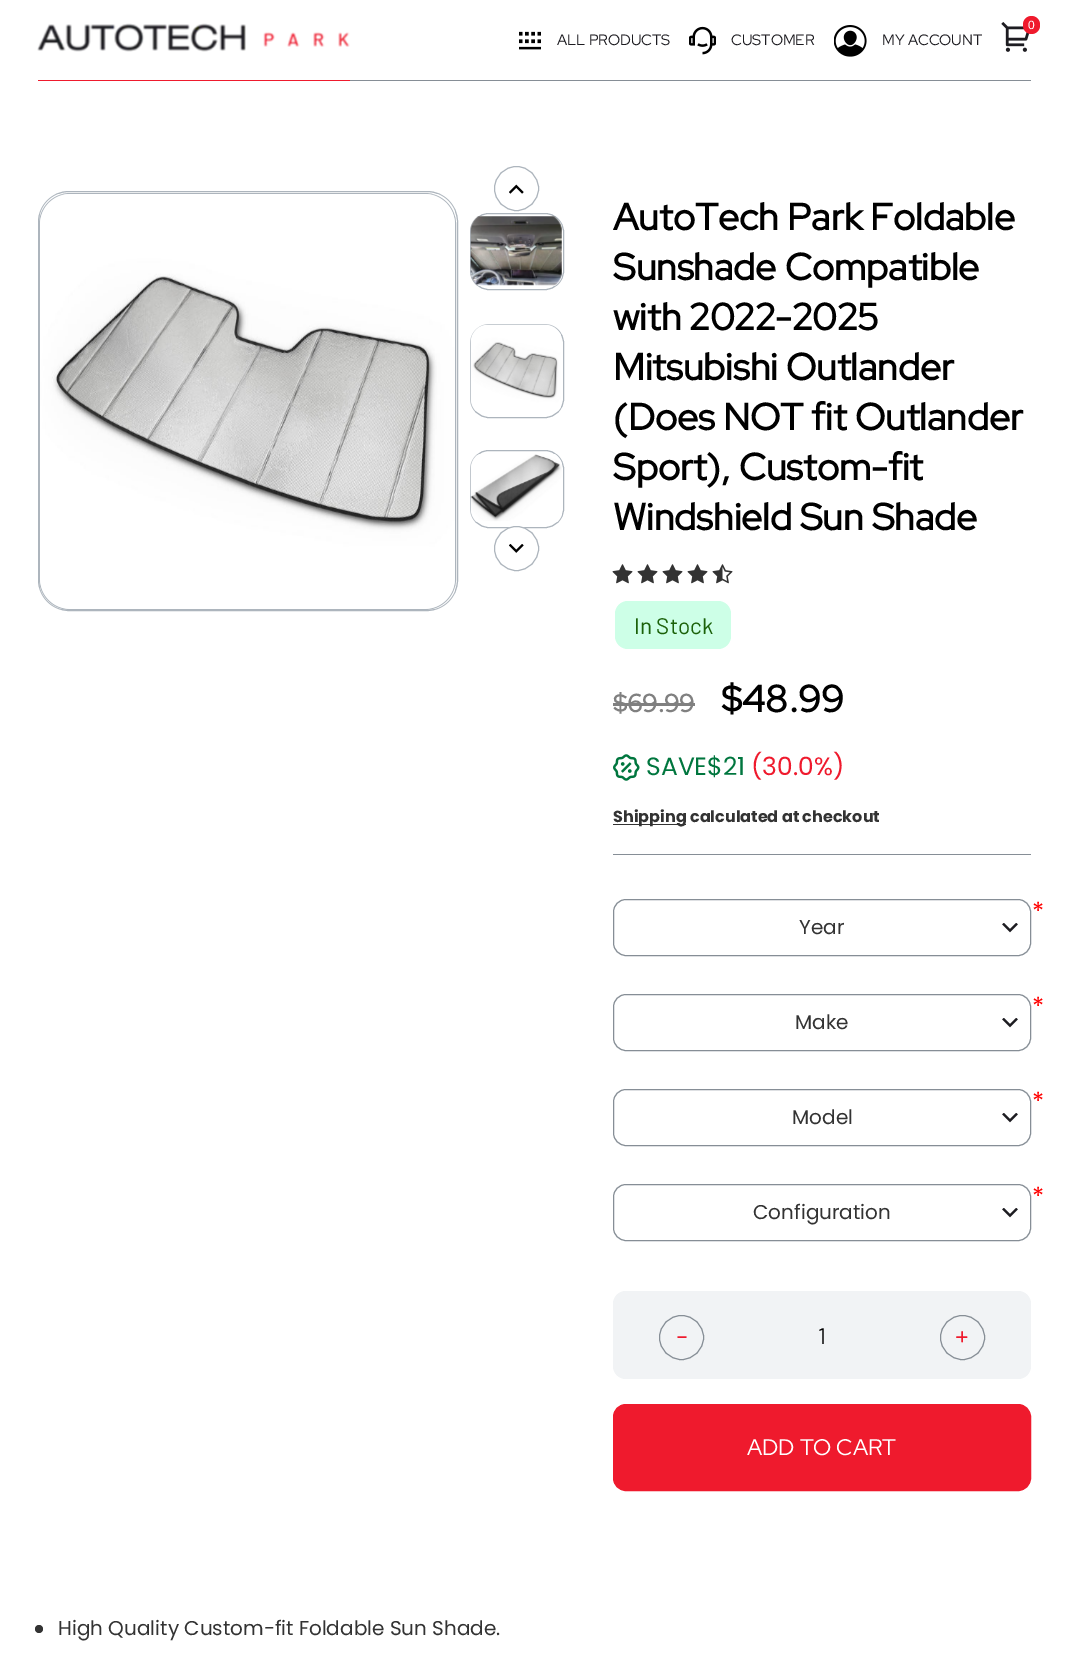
%!PS
<< /PageSize [1068 1654] >> setpagedevice
/mt/moveto load def
/li/lineto load def
/fl/fill load def
/st/stroke load def
/gs/gsave load def
/gr/grestore load def
/lw/setlinewidth load def
/co { dup -16 bitshift 255 div exch dup -8 bitshift 255 and 255 div exch 255 and 255 div setrgbcolor } def
/fn { [ exch dup neg 0 0 3 -1 roll 0 0 ] selectfont } def
/tx { co fn moveto show } def
/bx { co rectfill } def
/ci { newpath 0 360 arc closepath } def
/rr { 5 dict begin { /r /h /w /y /x } { exch def } forall
  x r add y moveto x w add y 2 copy h add r arct x w add y h add x 1 index r arct
  x y h add x y r arct x y 2 copy exch w add exch r arct closepath end } def
/im { 5 dict begin { /h /w /y /x /name } { exch def } forall
  gsave x y translate w h scale
  w h 8 [w 0 0 h 0 0] name (r) file false 3 colorimage grestore end } def
0 1654 translate 1 -1 scale
4 setmiterlimit
0 0 1068 1654 16#FFFFFF bx
350 80 681 1 16#868E96 bx
(media/1.raw) 37 23 313 29 im
38 80 312 1 16#EF1A2D bx
(media/2.raw) 1001 22 29 30 im
1023 16 17 18 8.5 rr fl
(media/3.raw) 519 31 22 19 im
(media/4.raw) 689 26 27 29 im
(media/5.raw) 834 25 33 32 im
16#ADB5BD co
38.5 191.5 419 419 30.5 rr st
39.5 193.5 416 416 30.5 rr st
(media/6.raw) 40 194 415 415 im
516.5 188.5 22 ci st
(media/7.raw) 509 184 15 10 im
470.5 213.5 93 76 18.5 rr st
(media/8.raw) 470 216 92 70 im
470.5 324.5 93 93 18.5 rr st
(media/9.raw) 470 324 91 87 im
470.5 450.5 93 77 18.5 rr st
(media/10.raw) 470 454 92 68 im
16#FFFFFF co
516.5 548.5 22 ci gs fl gr
16#ADB5BD co
st
(media/11.raw) 509 544 15 9 im
(media/12.raw) 612 564 21 20 im
(media/12.raw) 637 564 21 20 im
(media/12.raw) 662 564 21 20 im
(media/12.raw) 687 564 21 20 im
(media/13.raw) 712 564 21 20 im
16#CDFFE7 co
615 601 116 48 13 rr fl
613 703 82 3 16#808080 bx
(media/14.raw) 613 754 27 27 im
613 824 73 1 16#333333 bx
613 854 418 1 16#868E96 bx
613.5 899.5 417 56 12.5 rr st
(media/15.raw) 1002 923 16 10 im
613.5 994.5 417 56 12.5 rr st
(media/15.raw) 1002 1018 16 10 im
613.5 1089.5 417 56 12.5 rr st
(media/15.raw) 1002 1113 16 10 im
613.5 1184.5 417 56 12.5 rr st
(media/15.raw) 1002 1208 16 10 im
16#F1F3F5 co
613 1291 418 88 13 rr fl
16#868E96 co
681.5 1337.5 22 ci st
16#EF1A2D co
1.4 lw
1 setlinecap
1 setlinejoin
686 1337 mt 678 1337 li st
16#868E96 co
1 lw
0 setlinecap
0 setlinejoin
962.5 1337.5 22 ci st
16#EF1A2D co
1.6 lw
1 setlinecap
1 setlinejoin
962 1332 mt 962 1341.5 li 966.5 1337 mt 957 1337 li st
613.5 1404.5 417 86 12.5 rr gs fl gr
1 lw
0 setlinecap
0 setlinejoin
st
16#333333 co
39 1629 4 ci fl
(0) 1028 29 /LiberationSans-Regular 12 16#FFFFFF tx
(ALL PRODUCTS) 557 45 /RedHatDisplay-Regular 15 16#1D1C21 tx
(CUSTOMER) 731 45 /RedHatDisplay-Regular 15 16#1D1C21 tx
(MY ACCOUNT) 882 45 /RedHatDisplay-Regular 15 16#1D1C21 tx
(AutoTech Park Foldable) 613 230 /RedHatDisplay-Bold 37.5 16#000000 tx
(Sunshade Compatible) 613 280 /RedHatDisplay-Bold 37.5 16#000000 tx
(with 2022-2025) 613 330 /RedHatDisplay-Bold 37.5 16#000000 tx
(Mitsubishi Outlander) 613 380 /RedHatDisplay-Bold 37.5 16#000000 tx
(\(Does NOT fit Outlander) 613 430 /RedHatDisplay-Bold 37.5 16#000000 tx
(Sport\), Custom-fit) 613 480 /RedHatDisplay-Bold 37.5 16#000000 tx
(Windshield Sun Shade) 613 530 /RedHatDisplay-Bold 37.5 16#000000 tx
(In Stock) 634 634 /Barlow-Regular 22.5 16#1B6109 tx
($69.99) 613 712 /RedHatDisplay-Bold 25 16#808080 tx
($48.99) 721 712 /RedHatDisplay-Bold 37.5 16#000000 tx
(SAVE$21) 646 775 /Poppins-Regular 25 16#00763E tx
(\(30.0%\)) 751 775 /Poppins-Regular 25 16#EF1A2D tx
(Shipping calculated at checkout) 613 822 /Poppins-Bold 16 16#333333 tx
(*) 1032 920 /Poppins-Regular 25 16#FF0000 tx
(Year) 799 934 /Poppins-Regular 20 16#333333 tx
(*) 1032 1015 /Poppins-Regular 25 16#FF0000 tx
(Make) 795 1029 /Poppins-Regular 20 16#333333 tx
(*) 1032 1110 /Poppins-Regular 25 16#FF0000 tx
(Model) 792 1124 /Poppins-Regular 20 16#333333 tx
(*) 1032 1205 /Poppins-Regular 25 16#FF0000 tx
(Configuration) 753 1219 /Poppins-Regular 20 16#333333 tx
(1) 818 1344 /Barlow-Regular 22.5 16#000000 tx
(ADD TO CART) 747 1455 /RedHatDisplay-Regular 22.5 16#FFFFFF tx
(High Quality Custom-fit Foldable Sun Shade.) 58 1635 /Poppins-Regular 20 16#333333 tx
showpage
